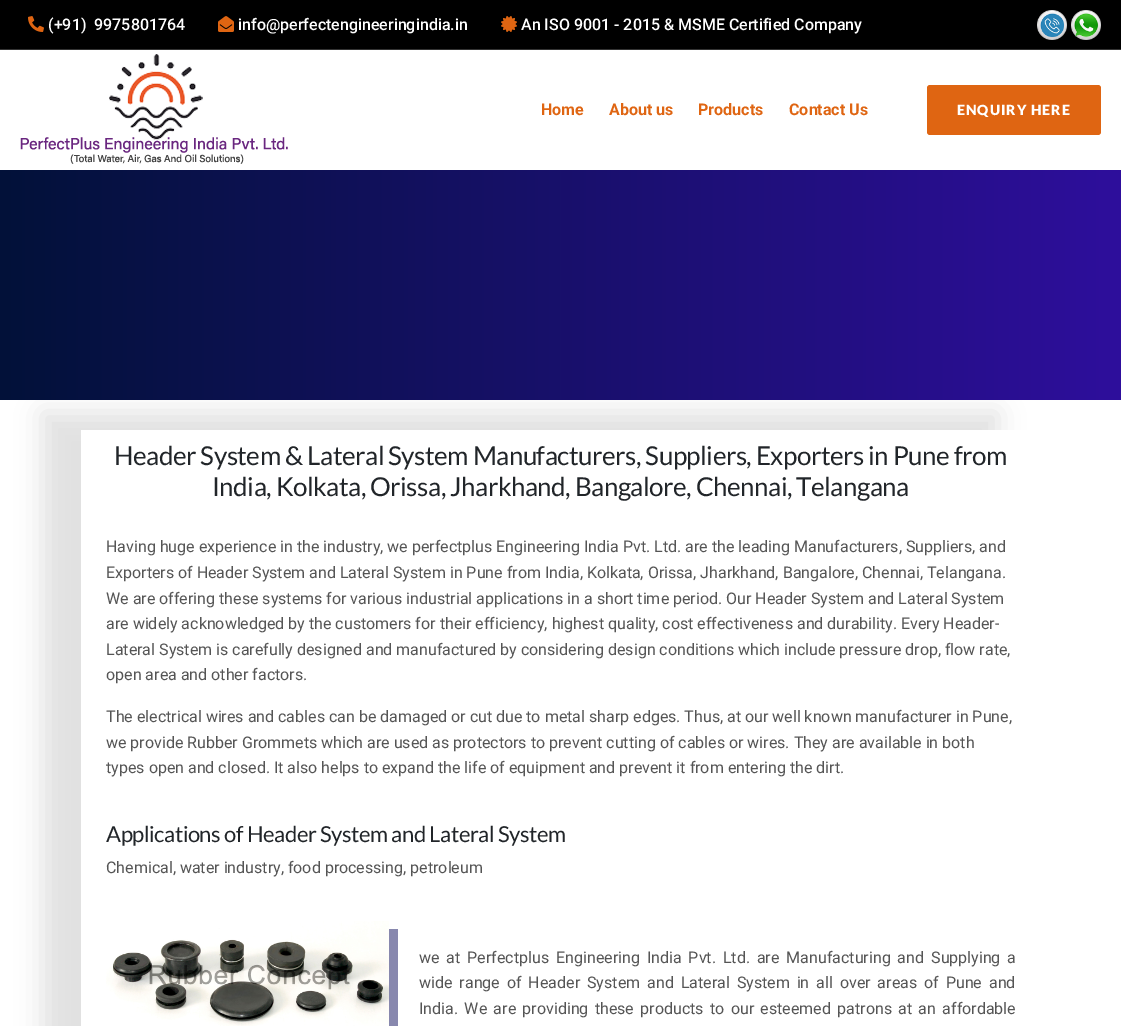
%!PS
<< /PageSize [1121 1026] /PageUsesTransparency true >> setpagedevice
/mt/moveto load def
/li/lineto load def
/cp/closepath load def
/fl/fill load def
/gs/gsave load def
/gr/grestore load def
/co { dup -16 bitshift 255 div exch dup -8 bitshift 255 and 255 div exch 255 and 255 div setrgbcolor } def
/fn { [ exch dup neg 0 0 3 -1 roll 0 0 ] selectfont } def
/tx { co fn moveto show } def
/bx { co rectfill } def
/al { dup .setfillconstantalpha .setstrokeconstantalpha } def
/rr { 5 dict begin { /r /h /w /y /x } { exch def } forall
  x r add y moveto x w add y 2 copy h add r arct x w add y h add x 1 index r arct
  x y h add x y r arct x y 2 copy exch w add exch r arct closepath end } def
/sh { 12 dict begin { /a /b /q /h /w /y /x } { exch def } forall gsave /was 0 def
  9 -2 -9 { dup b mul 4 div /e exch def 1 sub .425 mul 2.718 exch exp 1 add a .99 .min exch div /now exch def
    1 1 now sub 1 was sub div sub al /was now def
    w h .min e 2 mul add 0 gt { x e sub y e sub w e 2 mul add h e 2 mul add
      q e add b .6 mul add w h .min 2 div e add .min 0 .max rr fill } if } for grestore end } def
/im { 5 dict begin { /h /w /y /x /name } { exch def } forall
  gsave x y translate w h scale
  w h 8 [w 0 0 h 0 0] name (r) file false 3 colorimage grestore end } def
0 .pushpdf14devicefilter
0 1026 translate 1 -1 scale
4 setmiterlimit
0 0 1121 1026 16#FFFFFF bx
0 0 1121 49 16#000000 bx
0 49 1121 1 16#333333 bx
(media/1.raw) 28 16 16 16 im
(media/2.raw) 218 16 16 16 im
(media/3.raw) 501 16 16 16 im
(media/4.raw) 1037 10 30 30 im
(media/5.raw) 1071 10 30 30 im
(media/6.raw) 20 54 268 110 im
16#DF6512 co
927 85 174 50 3 rr fl
gs
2 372 mt 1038 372 li 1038 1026 li 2 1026 li cp 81 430 mt 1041 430 li 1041 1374 li 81 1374 li cp eoclip newpath
16#E0E0E0 co
42 412 956 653 0 13 1 sh
gr
gs 0 170 mt 1121 170 li 1121 400 li 0 400 li cp clip newpath
<< /ShadingType 2 /ColorSpace /DeviceRGB /Coords [0 285 1121 285] /Extend [true true] /Function << /FunctionType 2 /Domain [0 1] /C0 [.008 .071 .224] /C1 [.18 .055 .612] /N 1 >> >> shfill gr
16#8888AE co
115 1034 mt 115 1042 li 398 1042 li 398 929 li 389 929 li 389 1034 li cp fl
(media/7.raw) 106 921 283 105 im
(\(+91\)  9975801764) 48 30 /Roboto-Medium 16 16#FFFFFF tx
(info@perfectengineeringindia.in) 238 30 /Roboto-Medium 16 16#FFFFFF tx
(An ISO 9001 - 2015 & MSME Certified Company) 521 30 /Roboto-Medium 16 16#FFFFFF tx
(Home) 541 115 /Roboto-Bold 16 16#DF6512 tx
(About us) 609 115 /Roboto-Bold 16 16#DF6512 tx
(Products) 698 115 /Roboto-Bold 16 16#DF6512 tx
(Contact Us) 789 115 /Roboto-Bold 16 16#DF6512 tx
/Lato-Black 14 fn
16#FFFFFF co
957 115 mt 1 0 (ENQUIRY HERE) ashow
/Lato-Regular 26 fn
16#212529 co
114 465 mt -.52 0 (Header System & Lateral System Manufacturers, Suppliers, Exporters in Pune from) ashow
212 496 mt -.52 0 (India, Kolkata, Orissa, Jharkhand, Bangalore, Chennai, Telangana) ashow
(Having huge experience in the industry, we perfectplus Engineering India Pvt. Ltd. are the leading Manufacturers, Suppliers, and) 106 552 /Roboto-Regular 16 16#555555 tx
(Exporters of Header System and Lateral System in Pune from India, Kolkata, Orissa, Jharkhand, Bangalore, Chennai, Telangana.) 106 578 /Roboto-Regular 16 16#555555 tx
(We are offering these systems for various industrial applications in a short time period. Our Header System and Lateral System) 106 604 /Roboto-Regular 16 16#555555 tx
(are widely acknowledged by the customers for their efficiency, highest quality, cost effectiveness and durability. Every Header-) 106 629 /Roboto-Regular 16 16#555555 tx
(Lateral System is carefully designed and manufactured by considering design conditions which include pressure drop, flow rate,) 106 655 /Roboto-Regular 16 16#555555 tx
(open area and other factors.) 106 680 /Roboto-Regular 16 16#555555 tx
(The electrical wires and cables can be damaged or cut due to metal sharp edges. Thus, at our well known manufacturer in Pune,) 106 722 /Roboto-Regular 16 16#555555 tx
(we provide Rubber Grommets which are used as protectors to prevent cutting of cables or wires. They are available in both) 106 748 /Roboto-Regular 16 16#555555 tx
(types open and closed. It also helps to expand the life of equipment and prevent it from entering the dirt.) 106 773 /Roboto-Regular 16 16#555555 tx
/Lato-Regular 22 fn
16#212529 co
106 842 mt -.45 0 (Applications of Header System and Lateral System) ashow
(Chemical, water industry, food processing, petroleum) 106 873 /Roboto-Regular 16 16#555555 tx
419 963 mt 3 0 32 (we at Perfectplus Engineering India Pvt. Ltd. are Manufacturing and Supplying a) widthshow
419 988 mt 3 0 32 (wide range of Header System and Lateral System in all over areas of Pune and) widthshow
419 1014 mt 2.4 0 32 (India. We are providing these products to our esteemed patrons at an affordable) widthshow
.poppdf14devicefilter showpage
